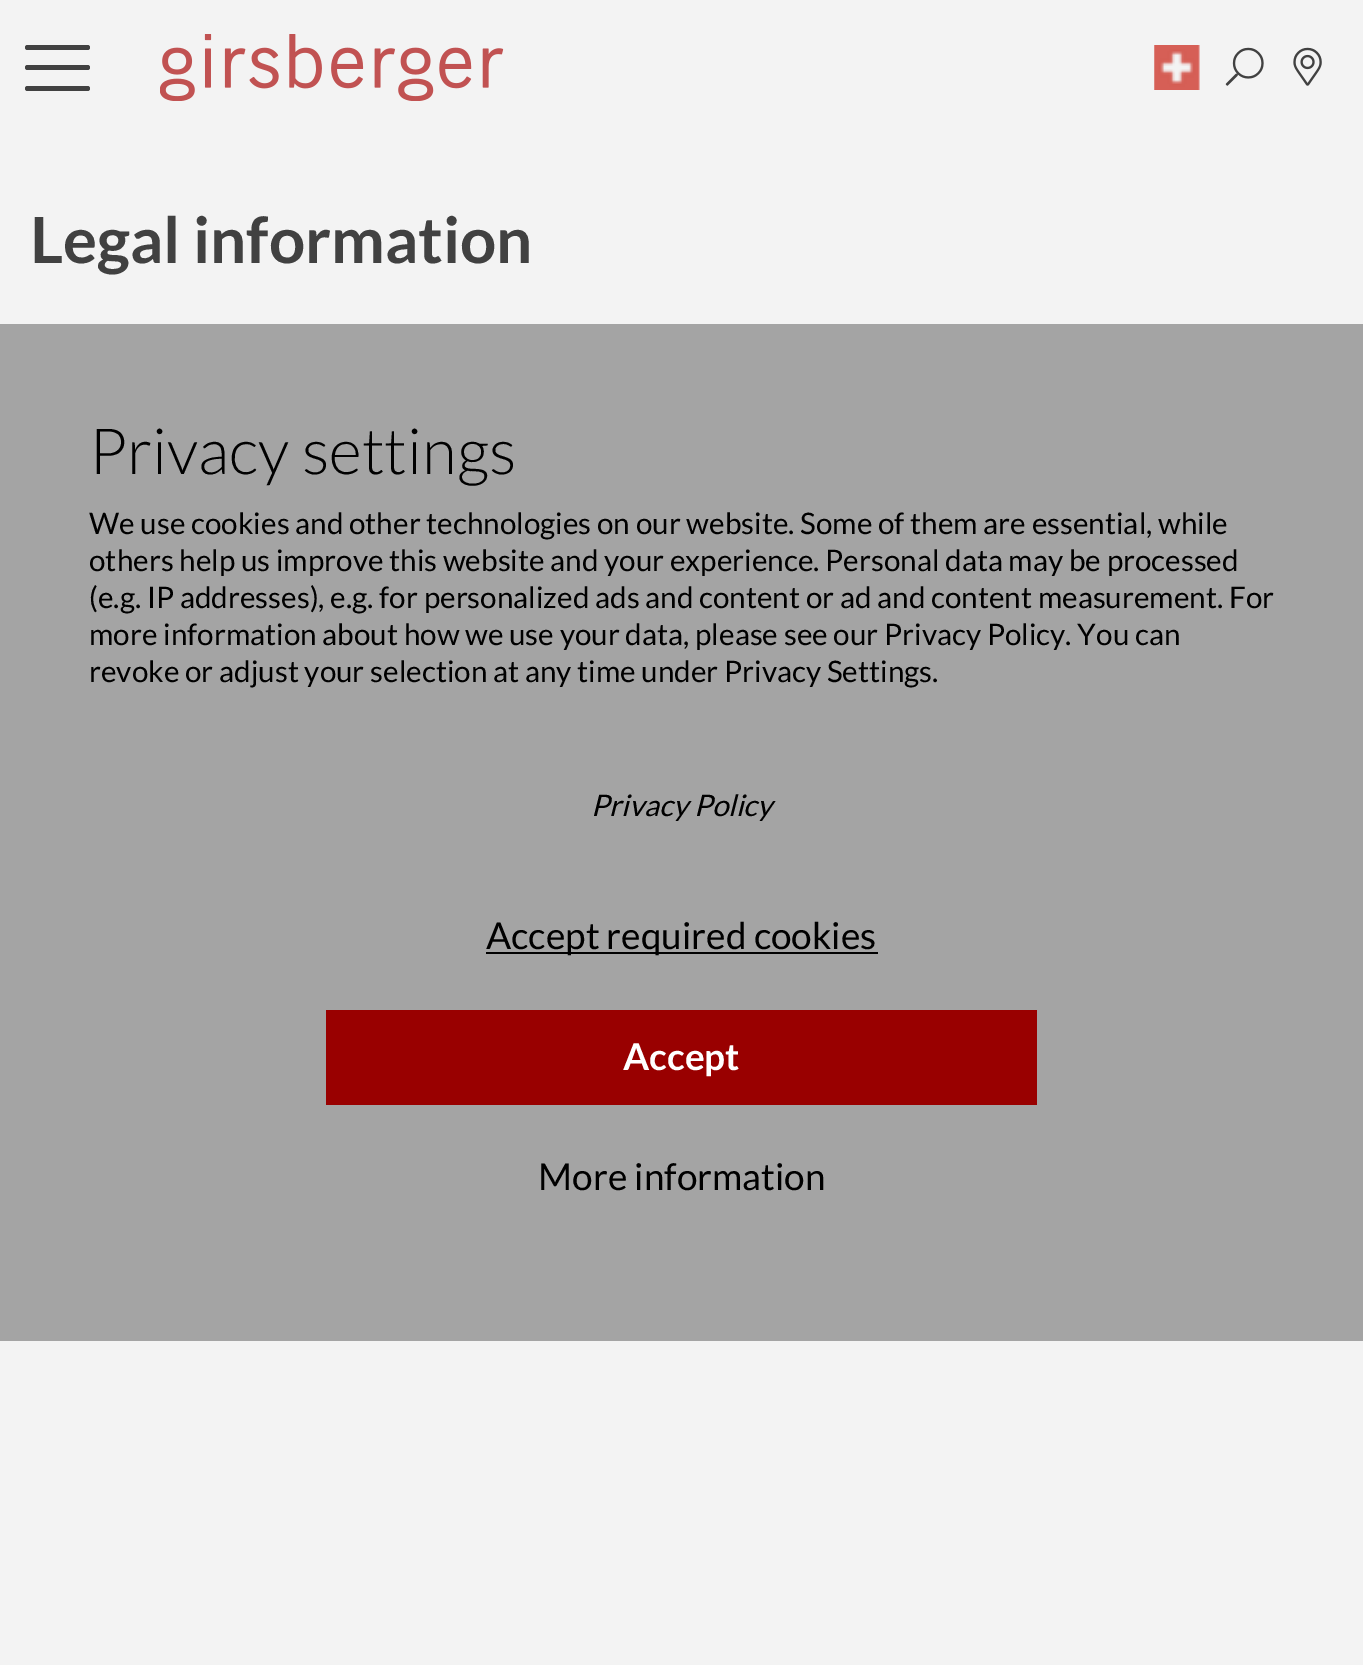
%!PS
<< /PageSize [1363 1665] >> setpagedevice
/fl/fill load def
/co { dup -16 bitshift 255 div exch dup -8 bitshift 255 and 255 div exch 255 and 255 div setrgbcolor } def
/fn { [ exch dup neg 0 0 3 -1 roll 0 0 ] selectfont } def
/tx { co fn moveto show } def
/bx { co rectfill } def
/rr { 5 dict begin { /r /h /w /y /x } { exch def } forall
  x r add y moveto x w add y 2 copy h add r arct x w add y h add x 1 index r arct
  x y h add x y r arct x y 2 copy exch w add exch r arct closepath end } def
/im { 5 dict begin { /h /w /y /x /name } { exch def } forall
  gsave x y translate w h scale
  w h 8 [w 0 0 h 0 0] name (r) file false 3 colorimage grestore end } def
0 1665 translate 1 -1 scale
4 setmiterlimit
0 0 1363 1665 16#F3F3F3 bx
16#414141 co
25 65 65 5 2.5 rr fl
25 45 65 5 2.5 rr fl
25 86 65 5 2.5 rr fl
(media/1.raw) 160 34 344 67 im
(media/2.raw) 1154 45 46 45 im
(media/3.raw) 1225 47 39 39 im
(media/4.raw) 1293 47 29 39 im
0 324 1363 1017 16#A4A4A4 bx
486 952 392 2 16#000000 bx
326 1010 711 95 16#990000 bx
(Legal information) 30 263 /Lato-Bold 63.75 16#414141 tx
(Privacy settings) 89 474 /Lato-Light 63.75 16#000000 tx
(We use cookies and other technologies on our website. Some of them are essential, while) 89 534 /Lato-Regular 29.65 16#000000 tx
(others help us improve this website and your experience. Personal data may be processed) 89 571 /Lato-Regular 29.65 16#000000 tx
(\(e.g. IP addresses\), e.g. for personalized ads and content or ad and content measurement. For) 89 608 /Lato-Regular 29.65 16#000000 tx
(more information about how we use your data, please see our Privacy Policy. You can) 89 645 /Lato-Regular 29.65 16#000000 tx
(revoke or adjust your selection at any time under) 89 682 /Lato-Regular 29.65 16#000000 tx
(Privacy Settings.) 724 682 /Lato-Regular 29.65 16#000000 tx
(Privacy Policy) 591 816 /Lato-Italic 29.65 16#000000 tx
(Accept required cookies) 486 949 /Lato-Regular 37 16#000000 tx
(Accept) 623 1070 /Lato-Bold 37 16#FFFFFF tx
(More information) 538 1190 /Lato-Regular 37 16#000000 tx
showpage
